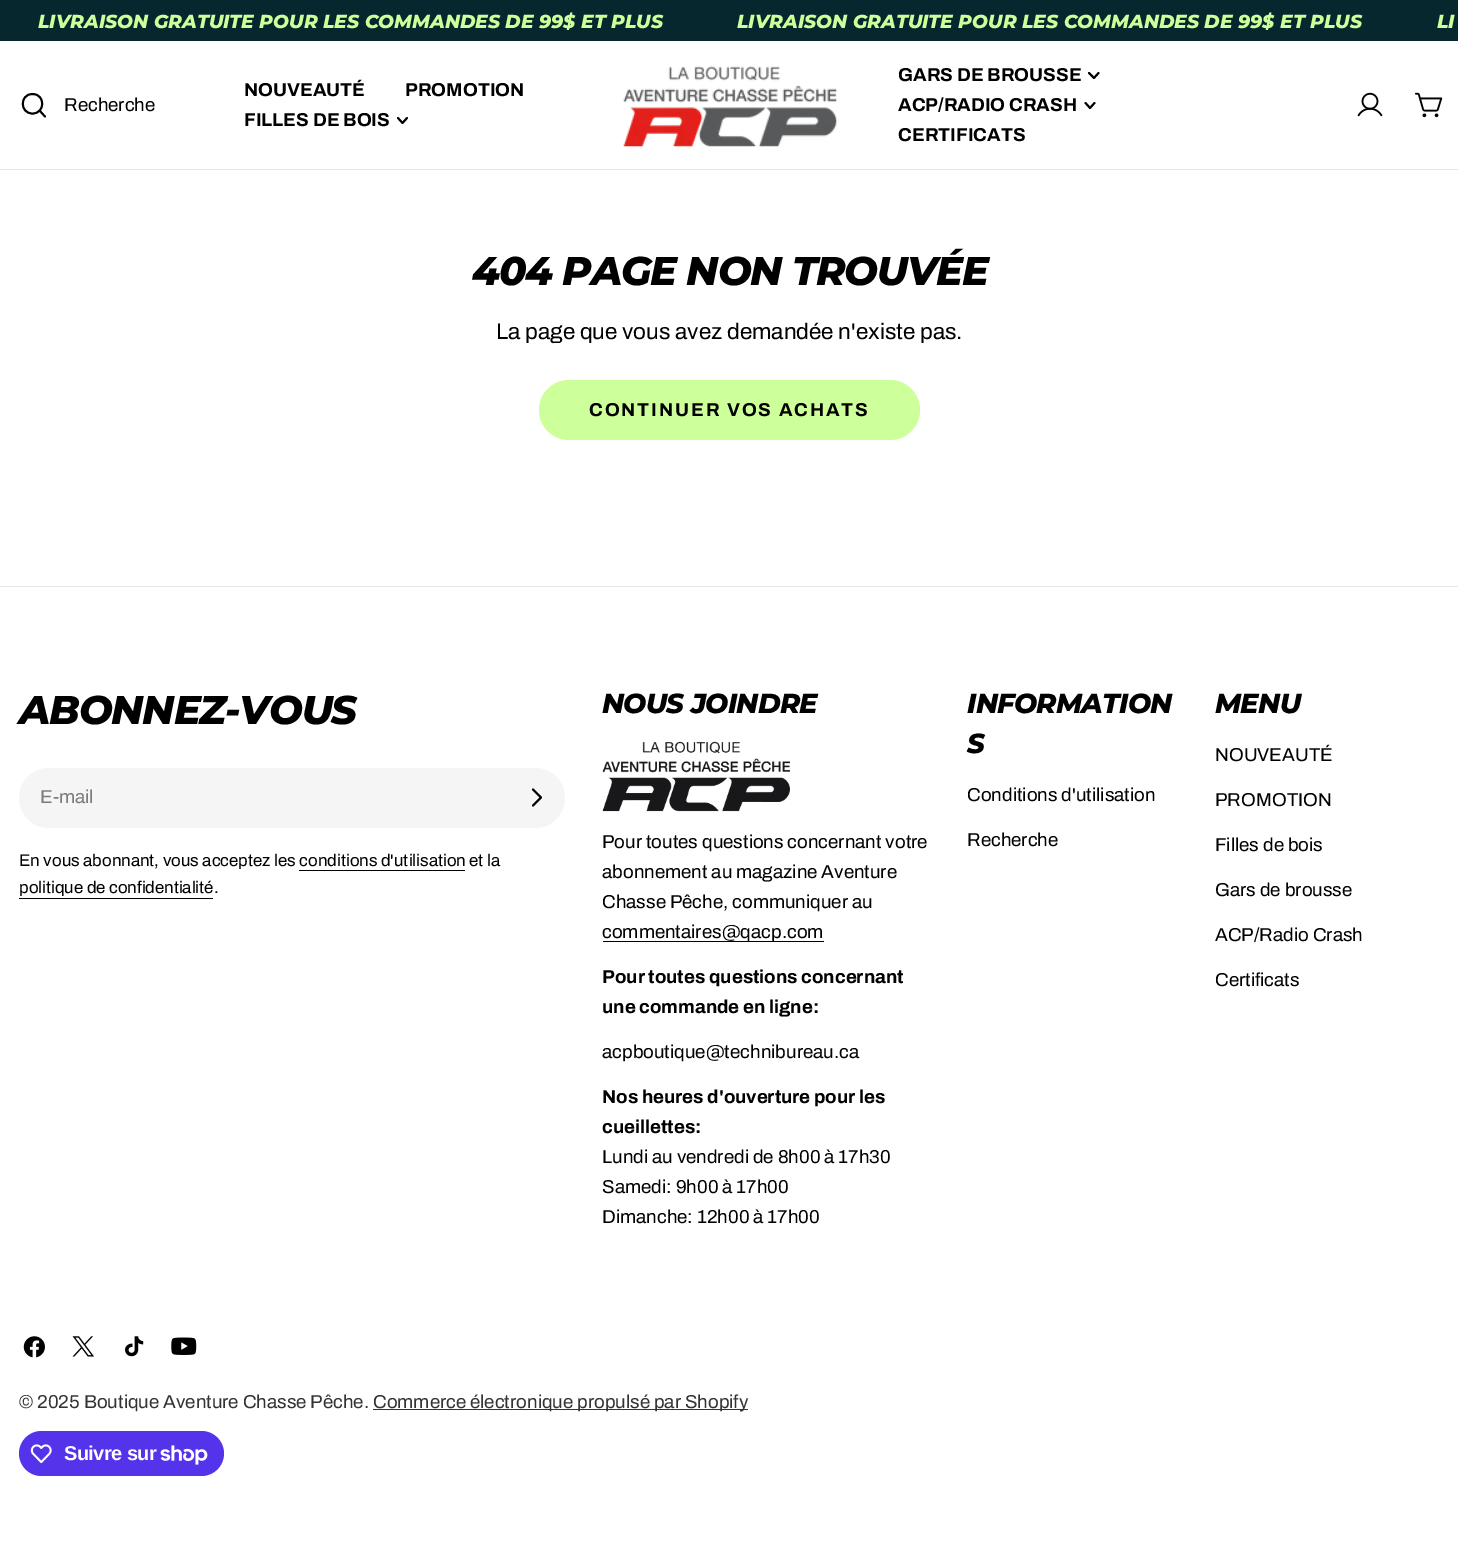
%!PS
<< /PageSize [1458 1563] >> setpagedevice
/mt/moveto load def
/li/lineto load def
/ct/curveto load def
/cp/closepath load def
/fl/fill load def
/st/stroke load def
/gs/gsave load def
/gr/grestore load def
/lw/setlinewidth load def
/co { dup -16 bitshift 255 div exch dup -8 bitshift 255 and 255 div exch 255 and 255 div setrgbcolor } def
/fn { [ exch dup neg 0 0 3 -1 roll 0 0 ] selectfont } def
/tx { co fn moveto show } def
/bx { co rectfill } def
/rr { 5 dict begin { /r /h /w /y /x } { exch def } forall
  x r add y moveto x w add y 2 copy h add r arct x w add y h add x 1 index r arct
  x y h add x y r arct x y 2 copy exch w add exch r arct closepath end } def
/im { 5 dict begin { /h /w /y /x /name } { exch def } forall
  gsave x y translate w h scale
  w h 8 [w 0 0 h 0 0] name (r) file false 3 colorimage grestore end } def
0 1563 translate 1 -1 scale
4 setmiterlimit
0 0 1458 1563 16#FFFFFF bx
0 0 1458 41 16#07272E bx
0 169 1458 1 16#E6E6E6 bx
16#000000 co
1.9 lw
1 setlinecap
1 setlinejoin
32.5 113.5 mt 45.5 113.5 45.5 94 32.5 94 ct 19.5 94 19.5 113.5 32.5 113.5 ct cp 39.5 110.5 mt 45 116.5 li st
407 118 mt 402.5 123 li 398 118 li st
(media/1.raw) 623 66 214 81 im
1098.5 73 mt 1094 78 li 1089 73 li st
1094.5 103 mt 1090 108 li 1085.5 103 li st
(media/2.raw) 1357 92 26 25 im
(media/3.raw) 1415 92 28 26 im
16#CDFF9A co
539 380 381 60 30 rr fl
0 586 1458 1 16#E6E6E6 bx
16#F5F5F5 co
19 768 546 60 30 rr fl
16#000000 co
533 789.5 mt 541 797.5 li 533 805.5 li st
299 870 166 1 16#000000 bx
19 898 194 1 16#000000 bx
(media/4.raw) 602 741 188 71 im
603 941 221 1 16#000000 bx
(media/5.raw) 23 1336 22 22 im
(media/6.raw) 72 1336 22 21 im
(media/7.raw) 125 1336 19 21 im
(media/8.raw) 171 1337 26 18 im
373 1409 375 1 16#333333 bx
16#5433EB co
19 1431 205 45 22.5 rr fl
(media/9.raw) 30 1444 22 20 im
(media/10.raw) 160 1445 48 20 im
gs
0 11 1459 19 rectclip
(LIVRAISON GRATUITE POUR LES COMMANDES DE 99$ ET PLUS) 38 28 /Montserrat-ExtraBoldItalic 18.75 16#CDFF9A tx
(LIVRAISON GRATUITE POUR LES COMMANDES DE 99$ ET PLUS) 737 28 /Montserrat-ExtraBoldItalic 18.75 16#CDFF9A tx
gr
(LI) 1437 28 /Montserrat-ExtraBoldItalic 18.75 16#CDFF9A tx
(Recherche) 64 111 /Archivo-Regular 18.75 16#000000 tx
(NOUVEAUTÉ) 244 96 /Archivo-Bold 18.75 16#000000 tx
(PROMOTION) 405 96 /Archivo-Bold 18.75 16#000000 tx
(FILLES DE BOIS) 244 126 /Archivo-Bold 18.75 16#000000 tx
(GARS DE BROUSSE) 898 81 /Archivo-Bold 18.75 16#000000 tx
(ACP/RADIO CRASH) 898 111 /Archivo-Bold 18.75 16#000000 tx
(CERTIFICATS) 898 141 /Archivo-Bold 18.75 16#000000 tx
/Montserrat-ExtraBoldItalic 40 fn
472 285 mt -1.2 0 (404 PAGE NON TROUVÉE) ashow
(La page que vous avez demandée n'existe pas.) 496 339 /Archivo-Regular 22.5 16#000000 tx
/Archivo-Bold 18.75 fn
589 416 mt 1.9 0 (CONTINUER VOS ACHATS) ashow
/Montserrat-ExtraBoldItalic 40 fn
19 724 mt -1.2 0 (ABONNEZ-VOUS) ashow
(E-mail) 40 803 /Archivo-Regular 18.75 16#7B7B7B tx
(En vous abonnant, vous acceptez les conditions d'utilisation et la) 19 866 /Archivo-Regular 16.9 16#000000 tx
(politique de confidentialité.) 19 893 /Archivo-Regular 16.9 16#000000 tx
/Montserrat-ExtraBoldItalic 27.5 fn
602 713 mt -.75 0 (NOUS JOINDRE) ashow
(Pour toutes questions concernant votre) 602 848 /Archivo-Regular 18.75 16#000000 tx
(abonnement au magazine Aventure) 602 878 /Archivo-Regular 18.75 16#000000 tx
(Chasse Pêche, communiquer au) 602 908 /Archivo-Regular 18.75 16#000000 tx
(commentaires@qacp.com) 602 938 /Archivo-Regular 18.75 16#000000 tx
(Pour toutes questions concernant) 602 983 /Archivo-Bold 18.75 16#000000 tx
(une commande en ligne:) 602 1013 /Archivo-Bold 18.75 16#000000 tx
(acpboutique@technibureau.ca) 602 1058 /Archivo-Regular 18.75 16#000000 tx
(Nos heures d'ouverture pour les) 602 1103 /Archivo-Bold 18.75 16#000000 tx
(cueillettes:) 602 1133 /Archivo-Bold 18.75 16#000000 tx
(Lundi au vendredi de 8h00 à 17h30) 602 1163 /Archivo-Regular 18.75 16#000000 tx
(Samedi: 9h00 à 17h00) 602 1193 /Archivo-Regular 18.75 16#000000 tx
(Dimanche: 12h00 à 17h00) 602 1223 /Archivo-Regular 18.75 16#000000 tx
/Montserrat-ExtraBoldItalic 27.5 fn
967 713 mt -.75 0 (INFORMATION) ashow
967 753 mt -.75 0 (S) ashow
(Conditions d'utilisation) 967 801 /Archivo-Regular 18.75 16#000000 tx
(Recherche) 967 846 /Archivo-Regular 18.75 16#000000 tx
/Montserrat-ExtraBoldItalic 27.5 fn
1215 713 mt -.75 0 (MENU) ashow
(NOUVEAUTÉ) 1215 761 /Archivo-Regular 18.75 16#000000 tx
(PROMOTION) 1215 806 /Archivo-Regular 18.75 16#000000 tx
(Filles de bois) 1215 851 /Archivo-Regular 18.75 16#000000 tx
(Gars de brousse) 1215 896 /Archivo-Regular 18.75 16#000000 tx
(ACP/Radio Crash) 1215 941 /Archivo-Regular 18.75 16#000000 tx
(Certificats) 1215 986 /Archivo-Regular 18.75 16#000000 tx
(© 2025 Boutique Aventure Chasse Pêche.) 19 1408 /Archivo-Regular 18.75 16#333333 tx
(Commerce électronique propulsé par Shopify) 373 1408 /Archivo-Regular 18.75 16#333333 tx
/LiberationSans-Bold 20 fn
16#FFFFFF co
64 1460 mt -.6 0 (Suivre sur) ashow
showpage
